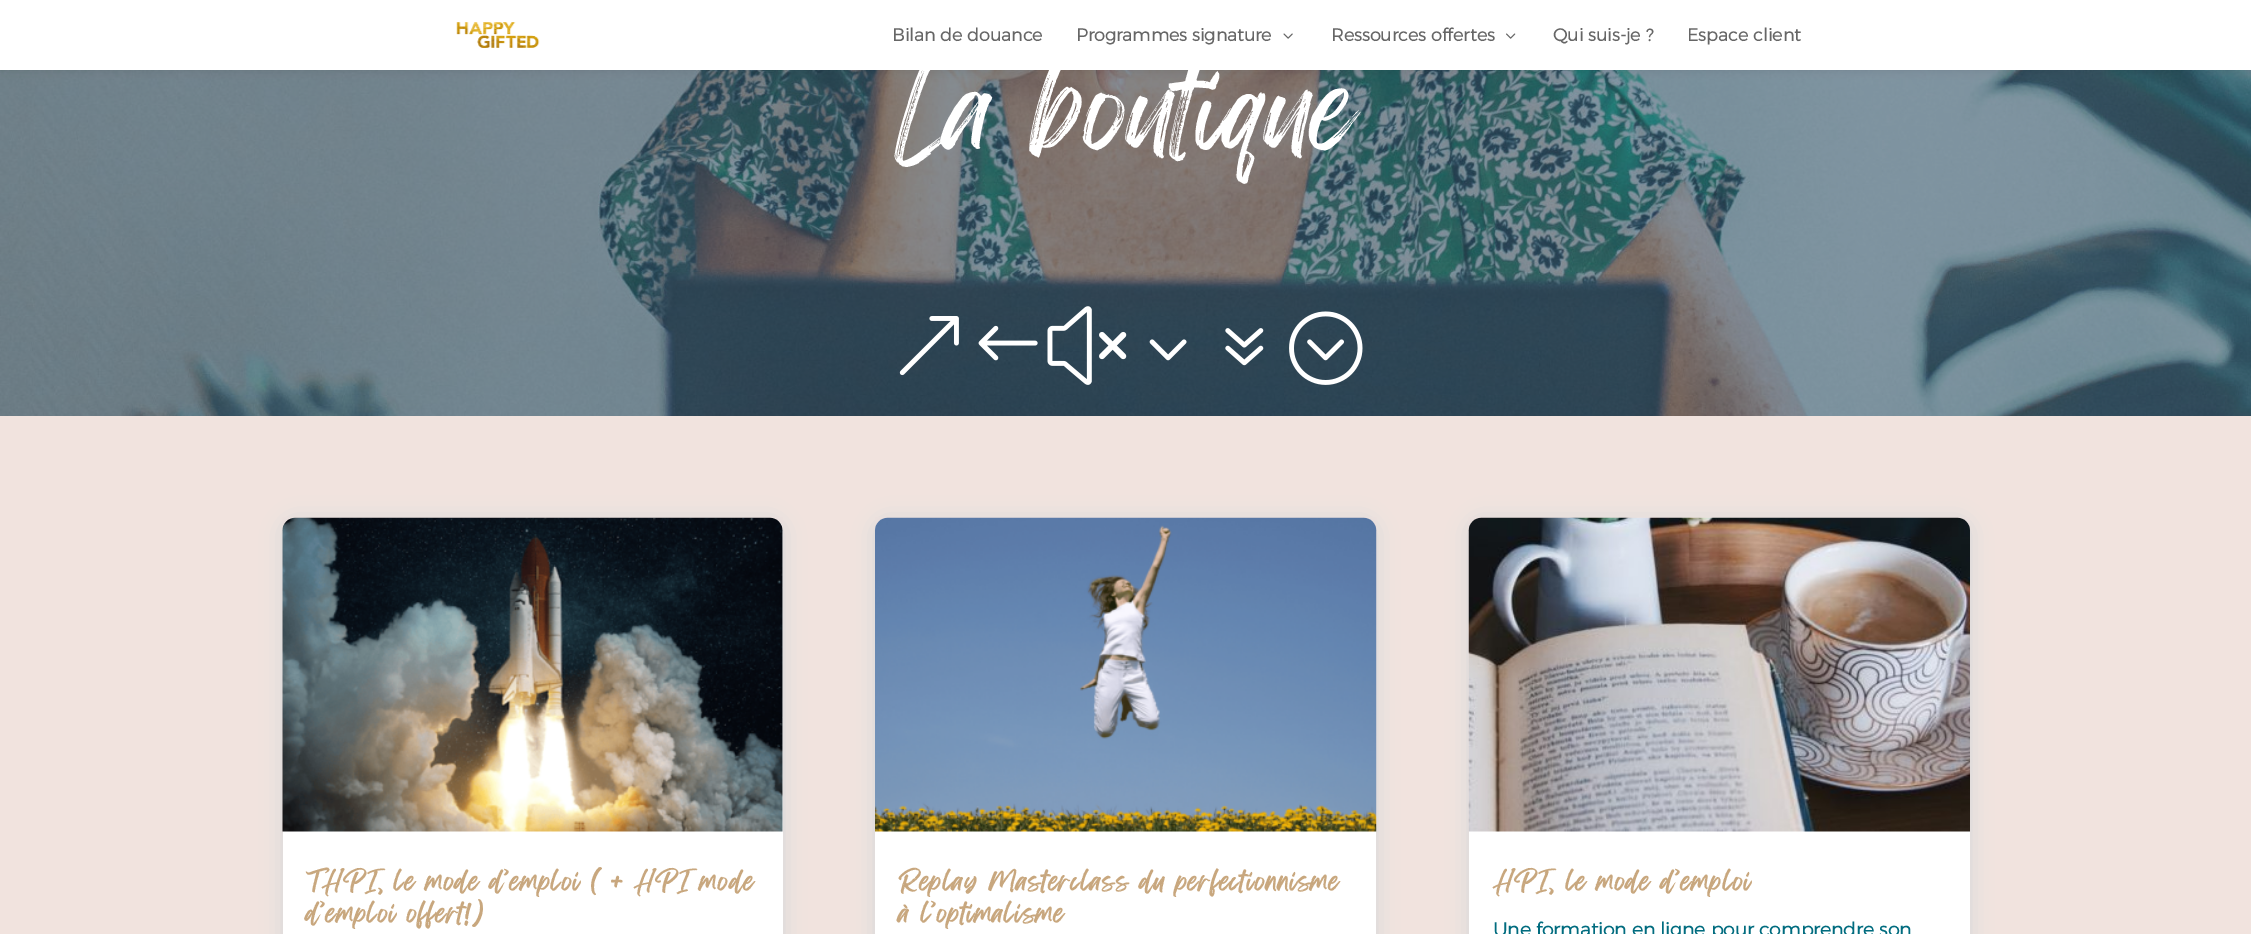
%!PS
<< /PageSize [2251 934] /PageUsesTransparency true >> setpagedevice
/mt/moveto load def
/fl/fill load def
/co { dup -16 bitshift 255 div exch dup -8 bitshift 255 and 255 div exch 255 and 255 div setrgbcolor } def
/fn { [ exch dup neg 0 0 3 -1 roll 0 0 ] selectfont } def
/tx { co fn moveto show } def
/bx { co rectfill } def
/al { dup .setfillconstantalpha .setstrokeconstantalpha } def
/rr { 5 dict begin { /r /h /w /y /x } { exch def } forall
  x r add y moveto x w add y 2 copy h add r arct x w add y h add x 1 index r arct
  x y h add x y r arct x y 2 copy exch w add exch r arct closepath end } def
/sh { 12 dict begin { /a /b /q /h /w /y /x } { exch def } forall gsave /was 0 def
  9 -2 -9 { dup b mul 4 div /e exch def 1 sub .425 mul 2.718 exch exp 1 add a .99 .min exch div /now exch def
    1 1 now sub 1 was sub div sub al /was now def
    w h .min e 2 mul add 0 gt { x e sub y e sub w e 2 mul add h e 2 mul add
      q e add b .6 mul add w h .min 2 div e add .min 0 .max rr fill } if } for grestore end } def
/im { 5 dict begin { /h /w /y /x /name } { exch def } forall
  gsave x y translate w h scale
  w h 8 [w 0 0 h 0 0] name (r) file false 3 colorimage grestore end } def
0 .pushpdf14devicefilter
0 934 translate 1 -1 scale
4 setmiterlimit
0 0 2251 934 16#FFFFFF bx
(media/4.raw) 0 70 2251 346 im
16#000000 co
0 0 2251 70 0 4.5 .1 sh
0 0 2251 70 16#FFFFFF bx
(media/1.raw) 456 22 84 26 im
(media/2.raw) 1283 33 10 6 im
(media/3.raw) 1506 33 10 6 im
(media/5.raw) 899 306 464 79 im
0 416 2251 518 16#F1E3DE bx
16#0C71C3 co
283 520 500 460 13 11 .13 sh
16#FFFFFF co
283 518 500 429 13 rr fl
(media/6.raw) 282 517 501 315 im
16#0C71C3 co
875 520 501 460 13 11 .13 sh
16#FFFFFF co
875 518 501 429 13 rr fl
(media/7.raw) 875 517 502 315 im
16#0C71C3 co
1469 520 501 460 13 11 .13 sh
16#FFFFFF co
1469 518 501 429 13 rr fl
(media/8.raw) 1468 517 502 315 im
(Bilan de douance) 892 41 /Montserrat-Bold 17.5 16#666666 tx
(Programmes signature) 1076 41 /Montserrat-Bold 17.5 16#666666 tx
(Ressources offertes) 1331 41 /Montserrat-Bold 17.5 16#666666 tx
(Qui suis-je ?) 1553 41 /Montserrat-Bold 17.5 16#666666 tx
(Espace client) 1687 41 /Montserrat-Bold 17.5 16#666666 tx
(La boutique) 895 156 /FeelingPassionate-Regular 97.5 16#FFFFFF tx
/FeelingPassionate-Bold 22.5 fn
16#C8A77E co
306 892 mt 1.25 0 (THPI, le mode d’emploi \( + HPI mode) ashow
306 924 mt 1.25 0 (d’emploi offert!\)) ashow
899 892 mt 1.25 0 (Replay Masterclass du perfectionnisme) ashow
899 924 mt 1.25 0 (à l’optimalisme) ashow
1493 892 mt 1.25 0 (HPI, le mode d’emploi) ashow
(Une formation en ligne pour comprendre son) 1493 936 /Montserrat-Bold 18.75 16#016C7F tx
.poppdf14devicefilter showpage
